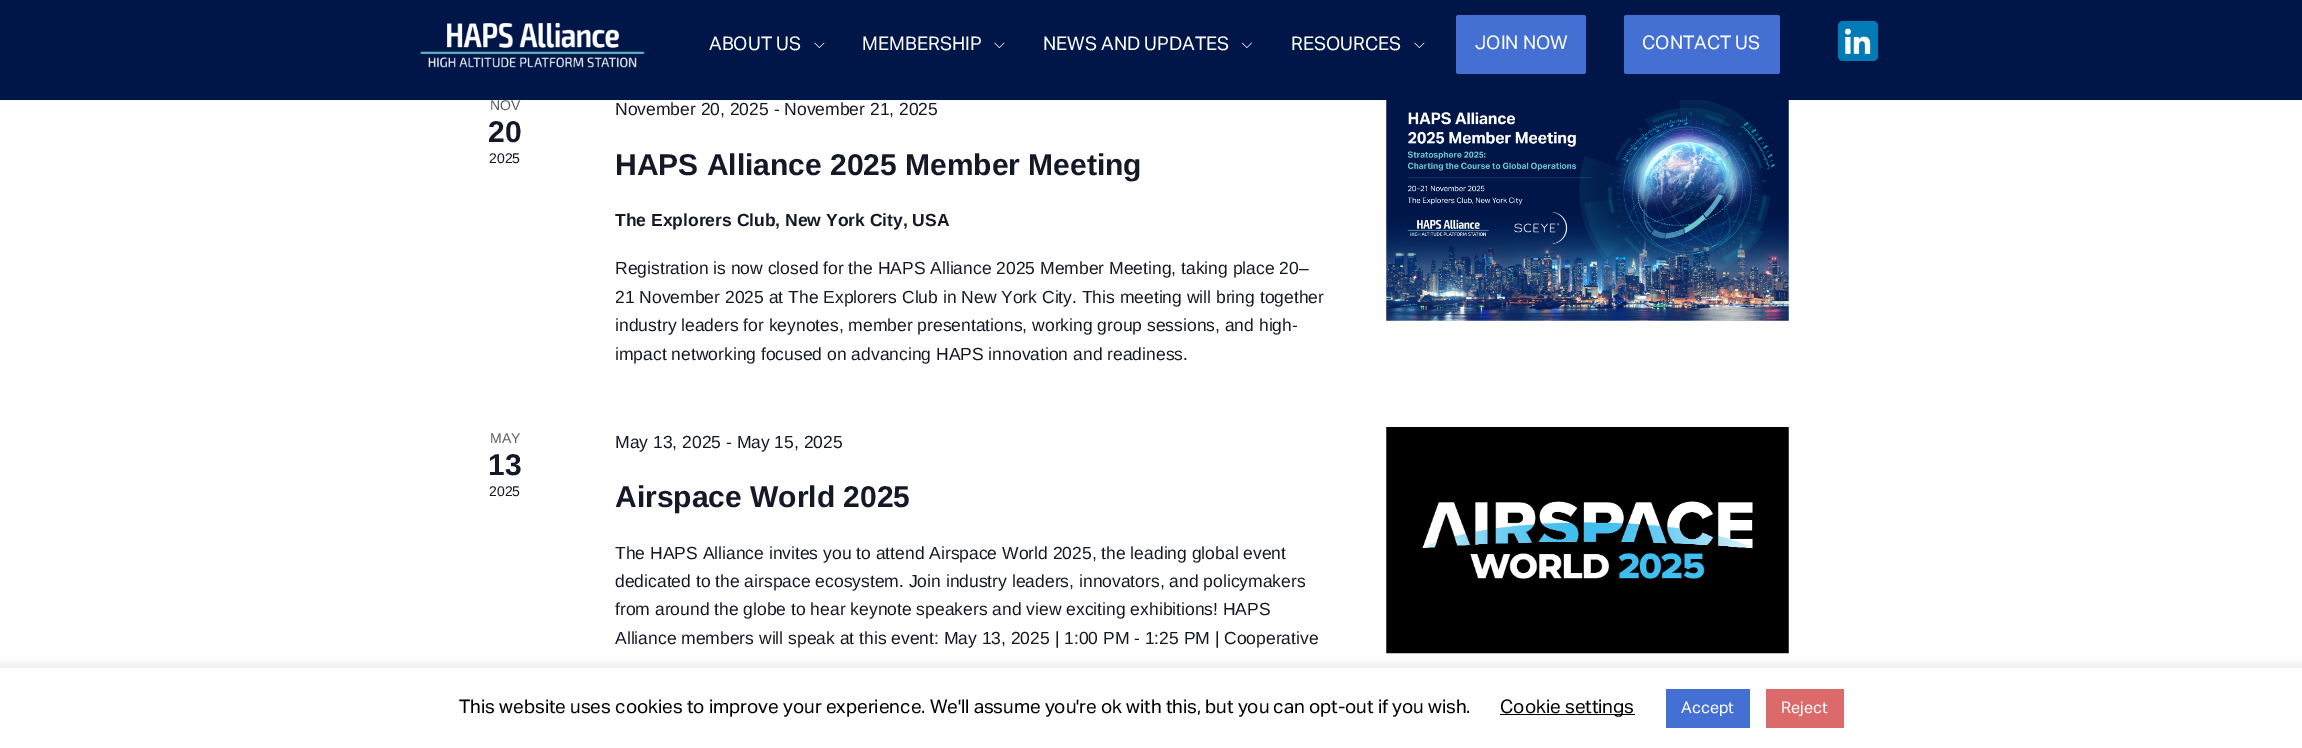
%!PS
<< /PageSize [2302 748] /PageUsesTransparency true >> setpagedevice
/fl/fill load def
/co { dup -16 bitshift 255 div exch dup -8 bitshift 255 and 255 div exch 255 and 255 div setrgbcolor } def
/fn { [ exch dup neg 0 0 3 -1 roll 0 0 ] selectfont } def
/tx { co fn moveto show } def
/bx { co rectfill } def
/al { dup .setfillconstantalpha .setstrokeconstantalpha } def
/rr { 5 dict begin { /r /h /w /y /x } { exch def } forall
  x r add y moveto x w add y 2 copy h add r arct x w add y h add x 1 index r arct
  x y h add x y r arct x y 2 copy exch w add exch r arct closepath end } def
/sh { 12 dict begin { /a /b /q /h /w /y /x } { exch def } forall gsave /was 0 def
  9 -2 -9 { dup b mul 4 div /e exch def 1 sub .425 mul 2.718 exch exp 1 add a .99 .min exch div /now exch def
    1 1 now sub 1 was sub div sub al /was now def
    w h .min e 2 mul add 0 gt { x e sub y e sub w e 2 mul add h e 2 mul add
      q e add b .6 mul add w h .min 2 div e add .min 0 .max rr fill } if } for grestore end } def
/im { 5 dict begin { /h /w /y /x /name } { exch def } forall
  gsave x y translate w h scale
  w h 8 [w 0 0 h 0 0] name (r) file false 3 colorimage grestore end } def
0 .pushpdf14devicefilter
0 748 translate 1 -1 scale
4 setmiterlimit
0 0 2302 748 16#FFFFFF bx
0 0 2302 100 16#001649 bx
(media/1.raw) 420 22 225 46 im
(media/2.raw) 814 42 11 6 im
(media/2.raw) 994 42 11 6 im
(media/3.raw) 1241 42 11 6 im
(media/2.raw) 1414 42 11 6 im
16#4570D3 co
1456 15 130 59 2.5 rr fl
1624 15 156 59 2.5 rr fl
16#007BB5 co
1838 21 40 40 5 rr fl
(media/4.raw) 1844 28 27 26 im
(media/5.raw) 1386 100 403 221 im
(media/6.raw) 1386 427 403 227 im
16#ACABAB co
0 666 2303 82 0 6 .3 sh
0 668 2302 80 16#FFFFFF bx
1500 714 135 1 16#000000 bx
1666 689 84 39 16#4570D3 bx
1766 689 78 39 16#DD6A6A bx
(ABOUT US) 709 50 /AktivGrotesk-Regular 18.75 16#FFFFFF tx
(MEMBERSHIP) 862 50 /AktivGrotesk-Regular 18.75 16#FFFFFF tx
(NEWS AND UPDATES) 1043 50 /AktivGrotesk-Regular 18.75 16#FFFFFF tx
(RESOURCES) 1291 50 /AktivGrotesk-Regular 18.75 16#FFFFFF tx
(JOIN NOW) 1475 49 /AktivGrotesk-Regular 18.75 16#FFFFFF tx
(CONTACT US) 1642 49 /AktivGrotesk-Regular 18.75 16#FFFFFF tx
(NOV) 490 110 /LiberationSans-Regular 14 16#5D5D5D tx
(20) 488 142 /LiberationSans-Bold 30 16#141827 tx
(2025) 489 163 /LiberationSans-Regular 14 16#141827 tx
(November 20, 2025 - November 21, 2025) 615 115 /LiberationSans-Regular 17.5 16#141827 tx
(HAPS Alliance 2025 Member Meeting) 615 175 /LiberationSans-Bold 30 16#141827 tx
(The Explorers Club, New York City, USA) 615 226 /LiberationSans-Bold 17.5 16#141827 tx
(Registration is now closed for the HAPS Alliance 2025 Member Meeting, taking place 20–) 615 274 /LiberationSans-Regular 17.5 16#141827 tx
(21 November 2025 at The Explorers Club in New York City. This meeting will bring together) 615 303 /LiberationSans-Regular 17.5 16#141827 tx
(industry leaders for keynotes, member presentations, working group sessions, and high-) 615 331 /LiberationSans-Regular 17.5 16#141827 tx
(impact networking focused on advancing HAPS innovation and readiness.) 615 360 /LiberationSans-Regular 17.5 16#141827 tx
(MAY) 490 443 /LiberationSans-Regular 14 16#5D5D5D tx
(13) 488 475 /LiberationSans-Bold 30 16#141827 tx
(2025) 489 496 /LiberationSans-Regular 14 16#141827 tx
(May 13, 2025 - May 15, 2025) 615 448 /LiberationSans-Regular 17.5 16#141827 tx
(Airspace World 2025) 615 507 /LiberationSans-Bold 30 16#141827 tx
(The HAPS Alliance invites you to attend Airspace World 2025, the leading global event) 615 559 /LiberationSans-Regular 17.5 16#141827 tx
(dedicated to the airspace ecosystem. Join industry leaders, innovators, and policymakers) 615 587 /LiberationSans-Regular 17.5 16#141827 tx
(from around the globe to hear keynote speakers and view exciting exhibitions! HAPS) 615 615 /LiberationSans-Regular 17.5 16#141827 tx
(Alliance members will speak at this event: May 13, 2025 | 1:00 PM - 1:25 PM | Cooperative) 615 644 /LiberationSans-Regular 17.5 16#141827 tx
(This website uses cookies to improve your experience. We'll assume you're ok with this, but you can opt-out if you wish.) 459 713 /AktivGrotesk-Regular 18.75 16#000000 tx
(Cookie settings) 1500 713 /AktivGrotesk-Regular 18.75 16#000000 tx
(Accept) 1681 713 /AktivGrotesk-Regular 16 16#FFFFFF tx
(Reject) 1781 713 /AktivGrotesk-Regular 16 16#FFFFFF tx
.poppdf14devicefilter showpage
